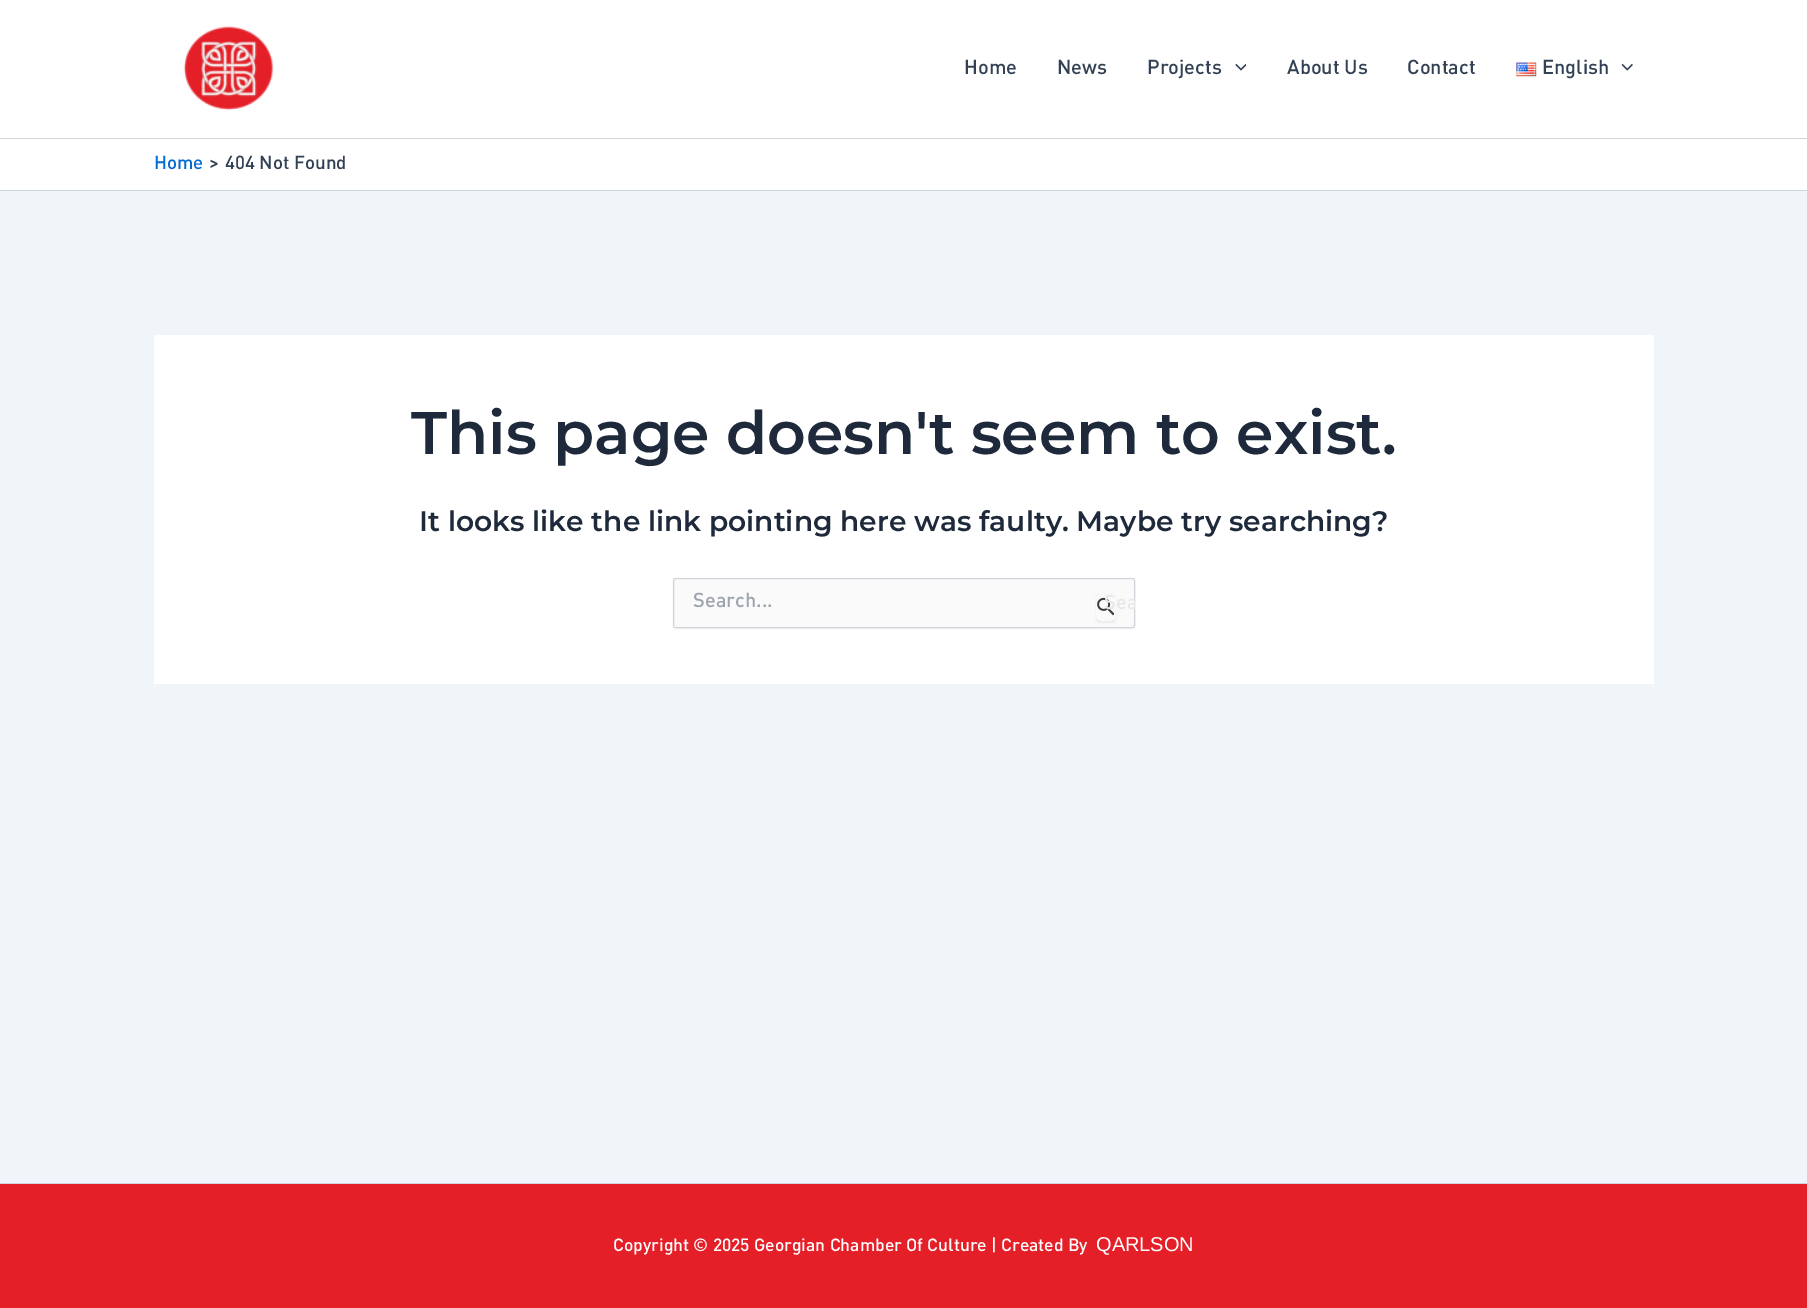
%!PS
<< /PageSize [1807 1308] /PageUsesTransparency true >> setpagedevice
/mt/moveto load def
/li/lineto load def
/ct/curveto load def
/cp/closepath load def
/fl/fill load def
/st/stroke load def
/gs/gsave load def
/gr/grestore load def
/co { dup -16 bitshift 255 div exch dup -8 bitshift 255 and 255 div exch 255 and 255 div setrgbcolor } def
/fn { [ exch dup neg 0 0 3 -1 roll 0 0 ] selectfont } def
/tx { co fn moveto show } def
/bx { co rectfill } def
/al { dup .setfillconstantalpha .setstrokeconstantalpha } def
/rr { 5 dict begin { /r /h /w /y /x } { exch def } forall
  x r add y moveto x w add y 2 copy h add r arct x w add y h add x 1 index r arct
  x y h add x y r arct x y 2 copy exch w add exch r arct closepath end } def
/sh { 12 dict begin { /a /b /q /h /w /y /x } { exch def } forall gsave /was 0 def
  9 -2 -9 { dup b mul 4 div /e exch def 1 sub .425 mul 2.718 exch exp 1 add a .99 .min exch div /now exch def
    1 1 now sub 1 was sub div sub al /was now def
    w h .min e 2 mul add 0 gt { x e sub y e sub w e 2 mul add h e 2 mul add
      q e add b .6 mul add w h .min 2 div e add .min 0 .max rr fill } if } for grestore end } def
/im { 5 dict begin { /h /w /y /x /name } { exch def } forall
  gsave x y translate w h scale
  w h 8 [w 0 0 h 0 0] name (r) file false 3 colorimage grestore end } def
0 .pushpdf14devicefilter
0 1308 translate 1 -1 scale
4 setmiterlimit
0 0 1807 1308 16#F0F5FA bx
0 0 1807 138 16#FFFFFF bx
0 138 1807 1 16#D1D5DB bx
(media/1.raw) 183 26 91 85 im
(media/2.raw) 1235 63 11 8 im
(media/3.raw) 1516 62 21 15 im
(media/4.raw) 1621 63 12 8 im
0 139 1807 51 16#FFFFFF bx
0 190 1807 1 16#D1D5DB bx
154 335 1500 349 16#FFFFFF bx
16#000000 co
673 579 462 50 2.5 1 .05 sh
16#FAFAFA co
673.5 578.5 461 49 2 rr gs fl gr
16#D1D5DB co
st
gs
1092 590 mt 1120 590 li 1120 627 li 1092 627 li cp 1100 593 mt 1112 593 li 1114 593 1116 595 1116 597 ct 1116 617 li 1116 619 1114 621 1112 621 ct 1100 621 li 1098 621 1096 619 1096 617 ct 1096 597 li 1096 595 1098 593 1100 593 ct cp eoclip newpath
16#000000 co
1096 594 20 29 4 1 .05 sh
gr
(media/5.raw) 1097 597 17 19 im
0 1184 1807 124 16#E41F28 bx
0 1183 1807 1 16#D1D5DB bx
(Home) 964 74 /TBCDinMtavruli-Medium 20 16#334155 tx
(News) 1057 74 /TBCDinMtavruli-Medium 20 16#334155 tx
(Projects) 1147 74 /TBCDinMtavruli-Medium 20 16#334155 tx
(About Us) 1287 74 /TBCDinMtavruli-Medium 20 16#334155 tx
(Contact) 1407 74 /TBCDinMtavruli-Medium 20 16#334155 tx
(English) 1542 74 /TBCDinMtavruli-Medium 20 16#334155 tx
(Home) 154 169 /TBCDinMtavruli-Medium 18.75 16#046BD2 tx
(>) 209 169 /TBCDinMtavruli-Medium 18.75 16#334155 tx
(404 Not Found) 225 169 /TBCDinMtavruli-Medium 18.75 16#334155 tx
(This page doesn't seem to exist.) 411 454 /Montserrat-SemiBold 60 16#1E293B tx
(It looks like the link pointing here was faulty. Maybe try searching?) 419 531 /Montserrat-SemiBold 28.1 16#1E293B tx
(Search...) 693 607 /TBCDinMtavruli-Medium 20 16#9CA3AF tx
gs
1079 578 56 52 2.5 rr clip newpath
(Sea) 1104 609 /TBCDinMtavruli-Medium 20 16#E7E7E7 tx
gr
(Copyright © 2025 Georgian Chamber Of Culture | Created By) 613 1251 /TBCDinMtavruli-Medium 17.5 16#FFFFFF tx
(QARLSON) 1096 1251 /LiberationSans-Regular 20 16#FFFFFF tx
.poppdf14devicefilter showpage
